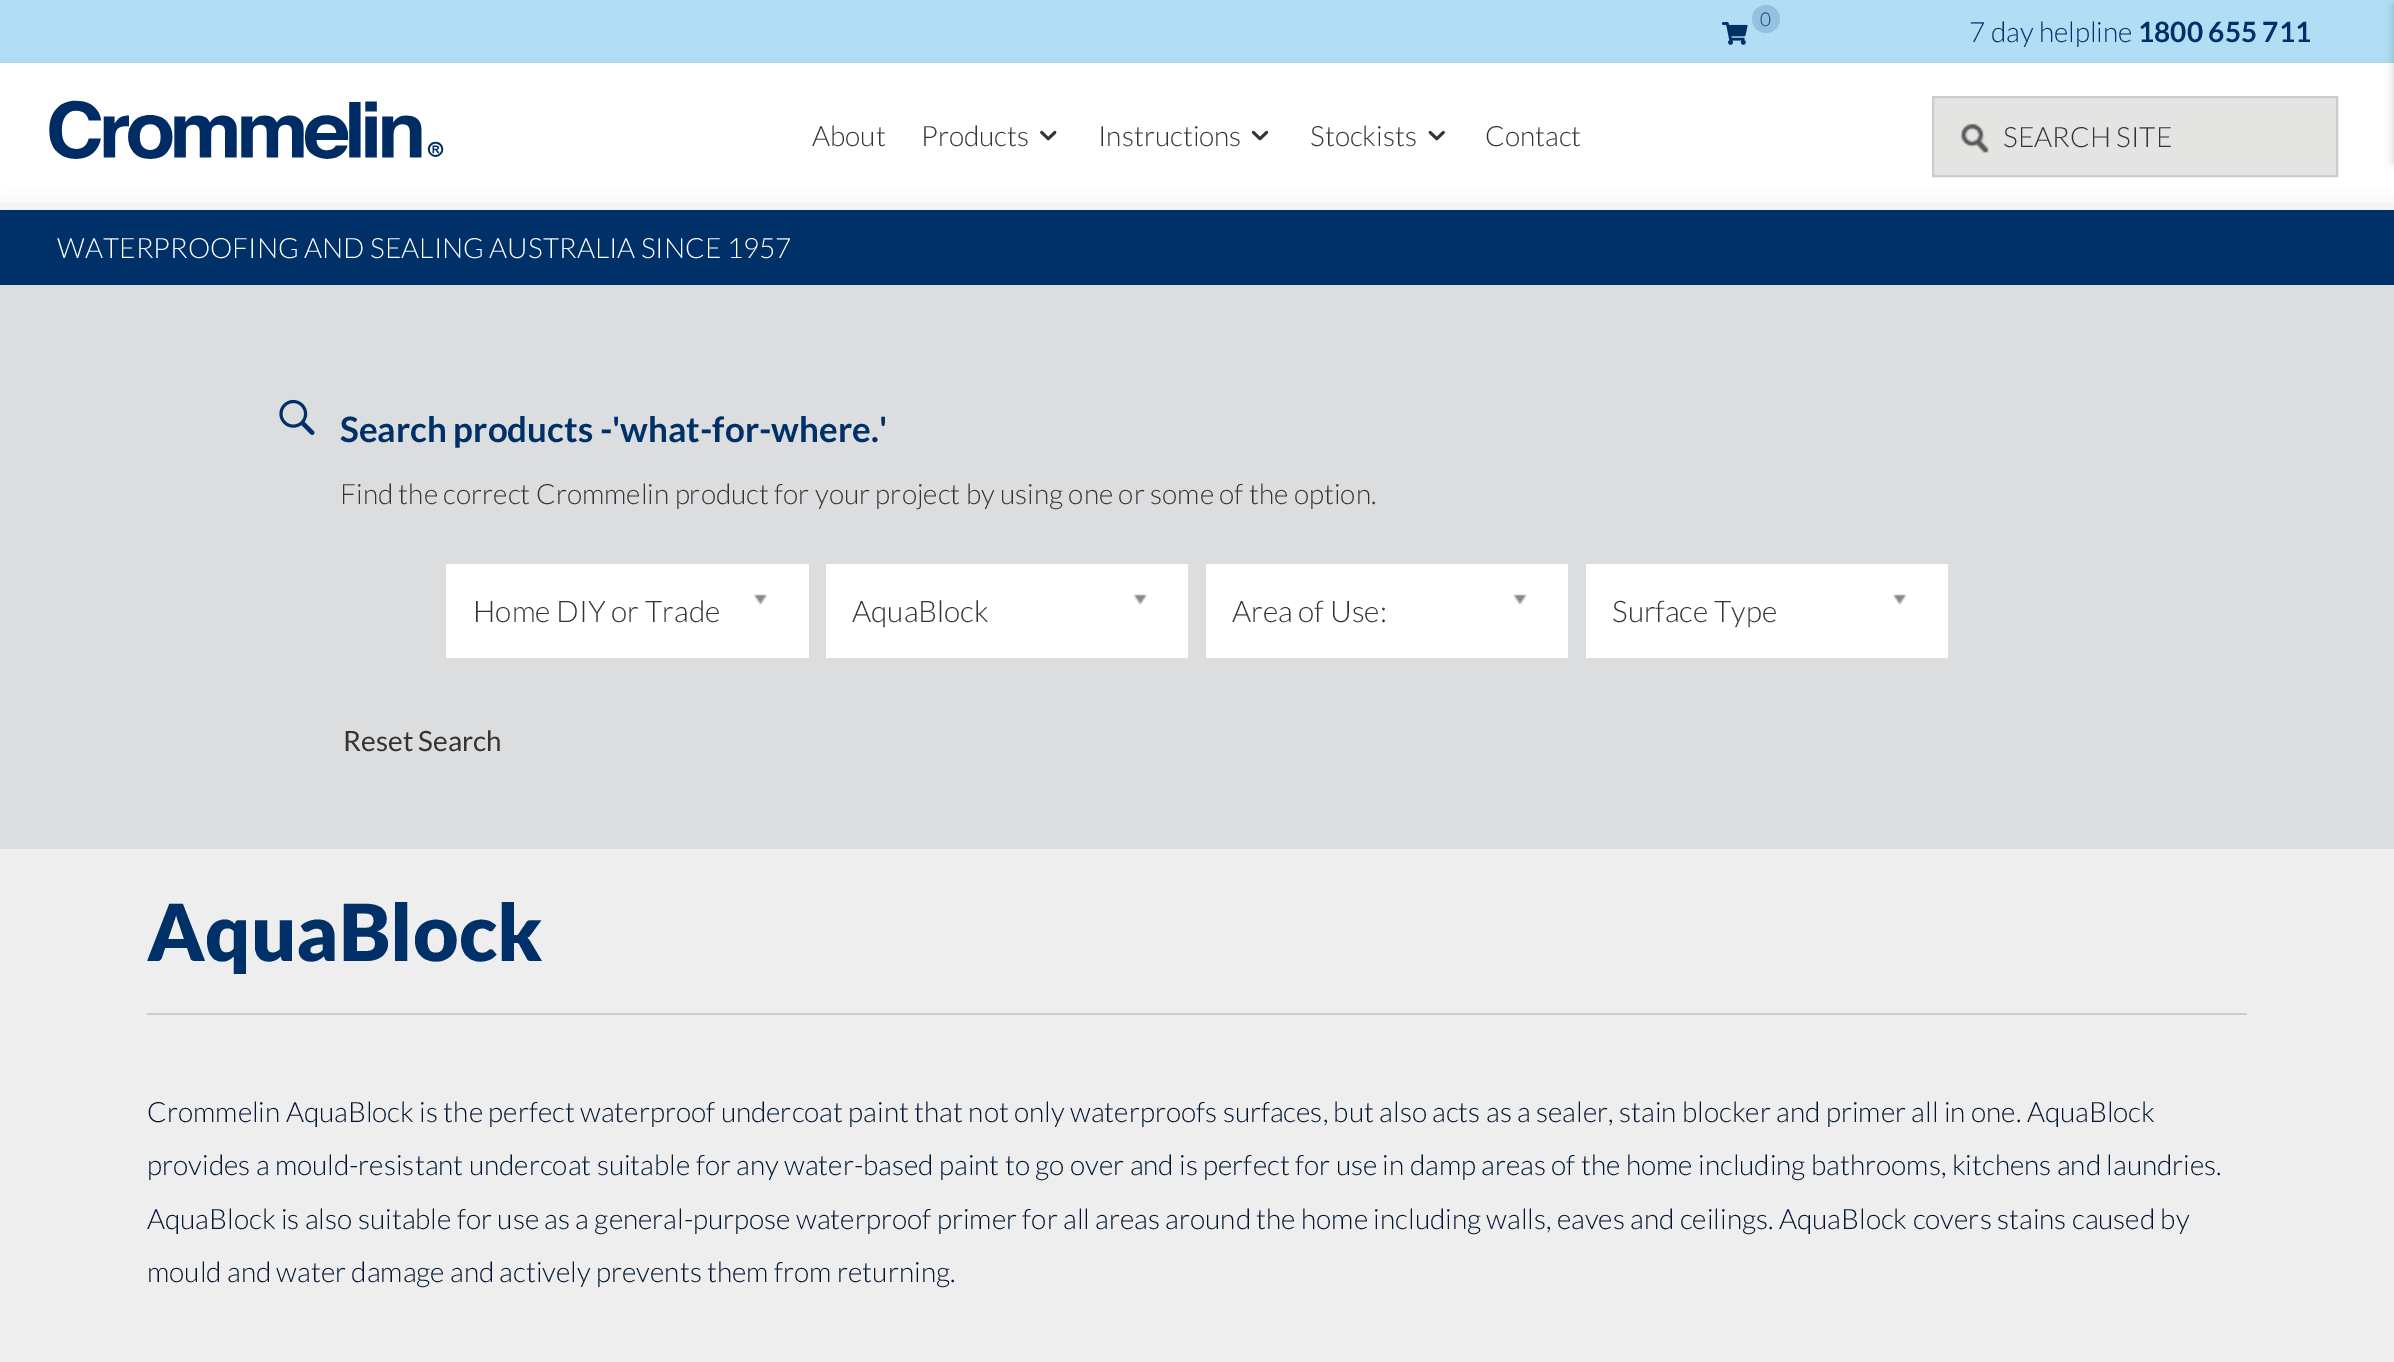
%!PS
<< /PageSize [2394 1362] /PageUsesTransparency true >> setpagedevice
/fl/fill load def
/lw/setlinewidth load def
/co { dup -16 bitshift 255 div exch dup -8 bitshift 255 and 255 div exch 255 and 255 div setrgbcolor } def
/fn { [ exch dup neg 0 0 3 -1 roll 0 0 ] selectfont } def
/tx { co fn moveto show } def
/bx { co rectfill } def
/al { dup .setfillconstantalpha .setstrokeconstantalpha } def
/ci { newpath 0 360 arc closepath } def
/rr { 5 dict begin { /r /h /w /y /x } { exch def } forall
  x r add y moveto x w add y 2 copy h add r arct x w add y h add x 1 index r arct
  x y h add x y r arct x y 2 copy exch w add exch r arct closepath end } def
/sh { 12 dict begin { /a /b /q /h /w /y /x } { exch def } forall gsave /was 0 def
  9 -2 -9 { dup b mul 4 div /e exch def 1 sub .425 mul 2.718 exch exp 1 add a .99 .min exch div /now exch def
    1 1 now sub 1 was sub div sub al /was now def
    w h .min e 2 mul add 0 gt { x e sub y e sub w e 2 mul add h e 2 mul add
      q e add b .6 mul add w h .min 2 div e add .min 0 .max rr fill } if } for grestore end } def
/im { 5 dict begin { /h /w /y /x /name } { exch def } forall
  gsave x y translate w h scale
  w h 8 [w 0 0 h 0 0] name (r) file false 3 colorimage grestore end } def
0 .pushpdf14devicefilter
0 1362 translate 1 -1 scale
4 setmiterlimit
0 0 2394 1362 16#EEEEEE bx
0 0 2394 63 16#B2DEF5 bx
16#003068 co
2 65 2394 147 0 4.5 .08 sh
0 63 2394 147 16#FFFFFF bx
16#000000 co
2394 5 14 158 0 4.5 .1 sh
16#95C1E0 co
1766 19 14 ci fl
(media/1.raw) 1722 22 26 23 im
(media/2.raw) 49 100 395 59 im
(media/3.raw) 1040 130 17 11 im
(media/4.raw) 1251 130 18 11 im
(media/5.raw) 1428 130 17 11 im
1934 98 402 77 16#E4E4E3 bx
(media/6.raw) 1960 123 29 30 im
16#CCCCCC co
2 lw
1933 97 404 79 rectstroke
16#000000 co
0 219 2394 75 0 13 .27 sh
0 210 2394 75 16#003068 bx
16#000000 co
2394 5 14 158 0 4.5 .1 sh
0 285 2394 564 16#DCDDDF bx
(media/7.raw) 279 399 36 36 im
446 564 363 94 16#FFFFFF bx
(media/8.raw) 753 594 14 11 im
826 564 362 94 16#FFFFFF bx
(media/9.raw) 1133 594 14 11 im
1206 564 362 94 16#FFFFFF bx
(media/10.raw) 1513 594 14 11 im
1586 564 362 94 16#FFFFFF bx
(media/11.raw) 1893 594 14 11 im
147 1013 2100 2 16#CCCCCC bx
(0) 1760 26 /Lato-Light 19 16#003068 tx
(7 day helpline) 1969 42 /Lato-Light 28 16#003068 tx
(1800 655 711) 2138 42 /Lato-Bold 28 16#003068 tx
(About) 812 146 /Lato-Light 28 16#363334 tx
(Products) 921 146 /Lato-Light 28 16#363334 tx
(Instructions) 1098 146 /Lato-Light 28 16#363334 tx
(Stockists) 1310 146 /Lato-Light 28 16#363334 tx
(Contact) 1485 146 /Lato-Light 28 16#363334 tx
(SEARCH SITE) 2003 147 /Lato-Light 28 16#363334 tx
(WATERPROOFING AND SEALING AUSTRALIA SINCE 1957) 57 258 /Lato-Light 28 16#FFFFFF tx
(Search products -'what-for-where.') 340 442 /Lato-Bold 35 16#003068 tx
(Find the correct Crommelin product for your project by using one or some of the option.) 340 504 /Lato-Light 28 16#363334 tx
(Home DIY or Trade) 473 622 /Lato-Light 29.75 16#363334 tx
(AquaBlock) 852 622 /Lato-Light 29.75 16#363334 tx
(Area of Use:) 1232 622 /Lato-Light 29.75 16#363334 tx
(Surface Type) 1612 622 /Lato-Light 29.75 16#363334 tx
(Reset Search) 343 751 /Lato-Regular 28 16#363334 tx
(AquaBlock) 147 961 /Lato-Black 78.75 16#003068 tx
(Crommelin AquaBlock is the perfect waterproof undercoat paint that not only waterproofs surfaces, but also acts as a sealer, stain blocker and primer all in one. AquaBlock) 147 1122 /Lato-Light 28 16#001630 tx
(provides a mould-resistant undercoat suitable for any water-based paint to go over and is perfect for use in damp areas of the home including bathrooms, kitchens and laundries.) 147 1175 /Lato-Light 28 16#001630 tx
(AquaBlock is also suitable for use as a general-purpose waterproof primer for all areas around the home including walls, eaves and ceilings. AquaBlock covers stains caused by) 147 1229 /Lato-Light 28 16#001630 tx
(mould and water damage and actively prevents them from returning.) 147 1282 /Lato-Light 28 16#001630 tx
.poppdf14devicefilter showpage
